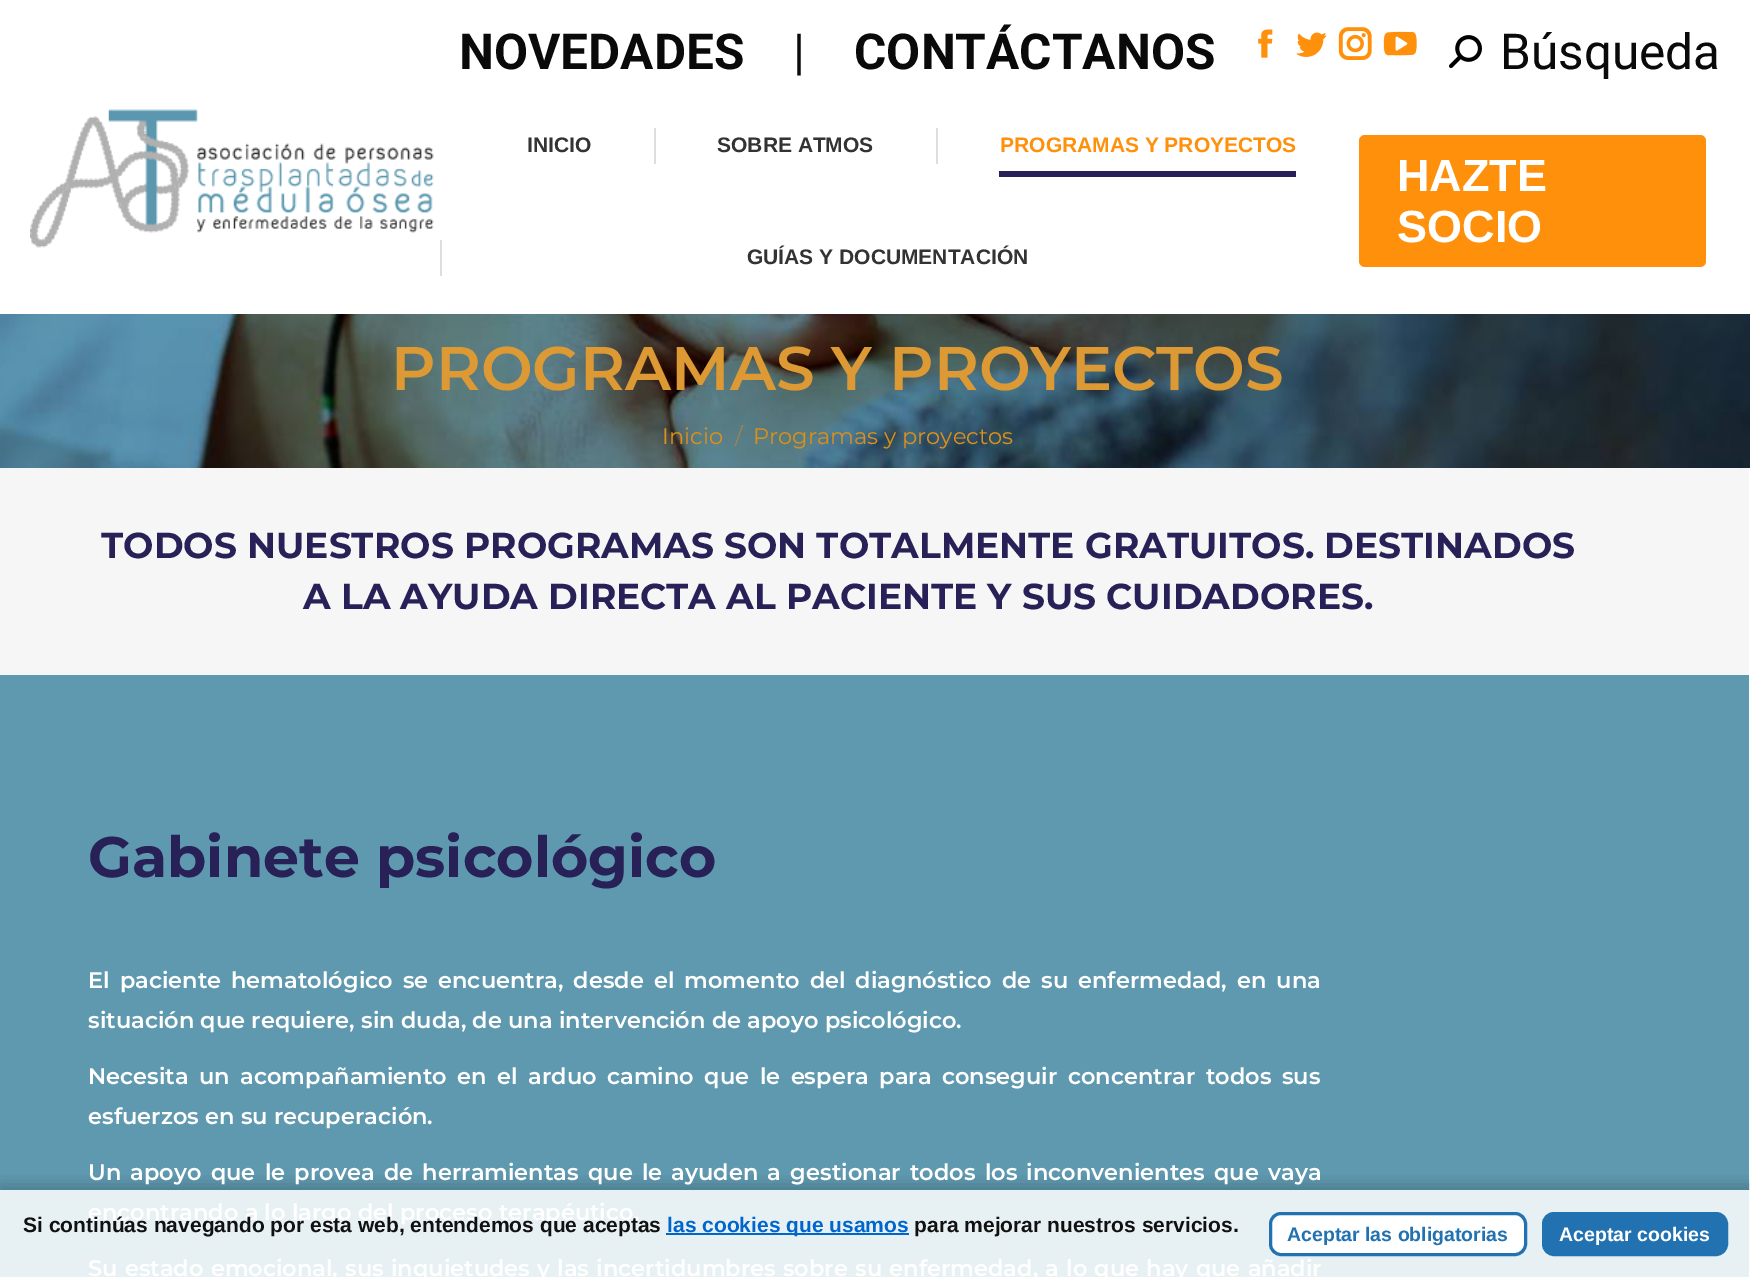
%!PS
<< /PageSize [1750 1277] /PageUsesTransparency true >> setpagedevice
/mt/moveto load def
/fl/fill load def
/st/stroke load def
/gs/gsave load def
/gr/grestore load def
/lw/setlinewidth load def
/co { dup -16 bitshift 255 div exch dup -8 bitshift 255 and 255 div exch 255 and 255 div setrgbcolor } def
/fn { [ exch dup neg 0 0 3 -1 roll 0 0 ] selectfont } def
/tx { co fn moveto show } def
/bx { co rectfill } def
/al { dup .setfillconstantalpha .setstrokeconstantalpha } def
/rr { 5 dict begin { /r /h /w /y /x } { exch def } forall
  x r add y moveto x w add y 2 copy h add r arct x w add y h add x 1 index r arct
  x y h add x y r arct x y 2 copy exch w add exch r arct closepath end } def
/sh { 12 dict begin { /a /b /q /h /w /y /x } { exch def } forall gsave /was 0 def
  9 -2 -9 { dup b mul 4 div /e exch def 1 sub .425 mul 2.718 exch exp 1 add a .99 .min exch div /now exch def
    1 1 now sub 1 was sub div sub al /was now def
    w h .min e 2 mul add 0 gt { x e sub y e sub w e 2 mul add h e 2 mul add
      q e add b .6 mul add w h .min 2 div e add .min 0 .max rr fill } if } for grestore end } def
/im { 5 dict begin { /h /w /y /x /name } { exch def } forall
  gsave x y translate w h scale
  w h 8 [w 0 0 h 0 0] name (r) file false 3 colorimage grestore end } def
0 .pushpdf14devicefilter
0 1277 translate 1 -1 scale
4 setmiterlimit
0 0 1750 1277 16#FFFFFF bx
(media/1.raw) 1258 29 15 29 im
(media/2.raw) 1296 32 31 25 im
(media/3.raw) 1338 27 34 33 im
(media/4.raw) 1383 31 34 25 im
(media/5.raw) 1449 35 33 33 im
(media/6.raw) 30 109 404 139 im
654 128 2 36 16#DEDEDE bx
936 128 2 36 16#DEDEDE bx
999 171 297 6 16#272157 bx
440 240 2 36 16#DEDEDE bx
16#FF900B co
1359 135 347 132 6 rr fl
(media/7.raw) 0 314 1750 154 im
0 468 1749 207 16#F6F6F6 bx
0 675 1749 515 16#5F99AF bx
0 1190 1749 87 16#E7F0F3 bx
gs
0 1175 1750 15 rectclip
16#000000 co
0 1185 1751 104 0 7.5 .2 sh
gr
666 1233 243 2 16#0066CC bx
16#FFFFFF co
1270.5 1213.5 255 41 10.5 rr gs fl gr
16#2271B1 co
3 lw
st
1543.5 1213.5 183 41 10.5 rr gs fl gr
st
(NOVEDADES) 459 69 /Roboto-Bold 49.5 16#0A0A0A tx
(|) 793 69 /Roboto-Regular 49.5 16#0A0A0A tx
(CONTÁCTANOS) 854 69 /Roboto-Bold 49.5 16#0A0A0A tx
(Búsqueda) 1500 69 /Roboto-Regular 49.5 16#0A0A0A tx
(INICIO) 527 152 /LiberationSans-Bold 21 16#333333 tx
(SOBRE ATMOS) 717 152 /LiberationSans-Bold 21 16#333333 tx
(PROGRAMAS Y PROYECTOS) 1000 152 /LiberationSans-Bold 21 16#FF900B tx
(GUÍAS Y DOCUMENTACIÓN) 747 264 /LiberationSans-Bold 21 16#333333 tx
(HAZTE) 1397 191 /LiberationSans-Bold 45 16#FFFFFF tx
(SOCIO) 1397 242 /LiberationSans-Bold 45 16#FFFFFF tx
(PROGRAMAS Y PROYECTOS) 391 390 /Montserrat-SemiBold 61.5 16#DD9933 tx
(Inicio) 662 444 /Montserrat-Regular 22.5 16#DD8F1A tx
(/) 735 444 /Montserrat-Regular 22.5 16#9A8650 tx
(Programas y proyectos) 753 444 /Montserrat-Regular 22.5 16#DD8F1A tx
(TODOS NUESTROS PROGRAMAS SON TOTALMENTE GRATUITOS. DESTINADOS) 101 558 /Montserrat-Bold 36 16#272157 tx
(A LA AYUDA DIRECTA AL PACIENTE Y SUS CUIDADORES.) 303 609 /Montserrat-Bold 36 16#272157 tx
(Gabinete psicológico) 88 877 /Montserrat-Bold 57 16#272157 tx
/Montserrat-SemiBold 22.5 fn
16#FFFFFF co
88 988 mt 3.75 0 32 (El paciente hematológico se encuentra, desde el momento del diagnóstico de su enfermedad, en una) widthshow
(situación que requiere, sin duda, de una intervención de apoyo psicológico.) 88 1028 /Montserrat-SemiBold 22.5 16#FFFFFF tx
88 1084 mt 4.25 0 32 (Necesita un acompañamiento en el arduo camino que le espera para conseguir concentrar todos sus) widthshow
(esfuerzos en su recuperación.) 88 1124 /Montserrat-SemiBold 22.5 16#FFFFFF tx
88 1180 mt 3 0 32 (Un apoyo que le provea de herramientas que le ayuden a gestionar todos los inconvenientes que vaya) widthshow
(encontrando a lo largo del proceso terapéutico.) 88 1220 /Montserrat-SemiBold 22.5 16#FFFFFF tx
88 1276 mt 1 0 32 (Su estado emocional, sus inquietudes y las incertidumbres sobre su enfermedad, a lo que hay que añadir) widthshow
(Si continúas navegando por esta web, entendemos que aceptas) 23 1232 /LiberationSans-Bold 21 16#111111 tx
(las cookies que usamos) 667 1232 /LiberationSans-Bold 21 16#0066CC tx
(para mejorar nuestros servicios.) 914 1232 /LiberationSans-Bold 21 16#111111 tx
(Aceptar las obligatorias) 1287 1241 /LiberationSans-Bold 19.5 16#2271B1 tx
(Aceptar cookies) 1559 1241 /LiberationSans-Bold 19.5 16#FFFFFF tx
.poppdf14devicefilter showpage
